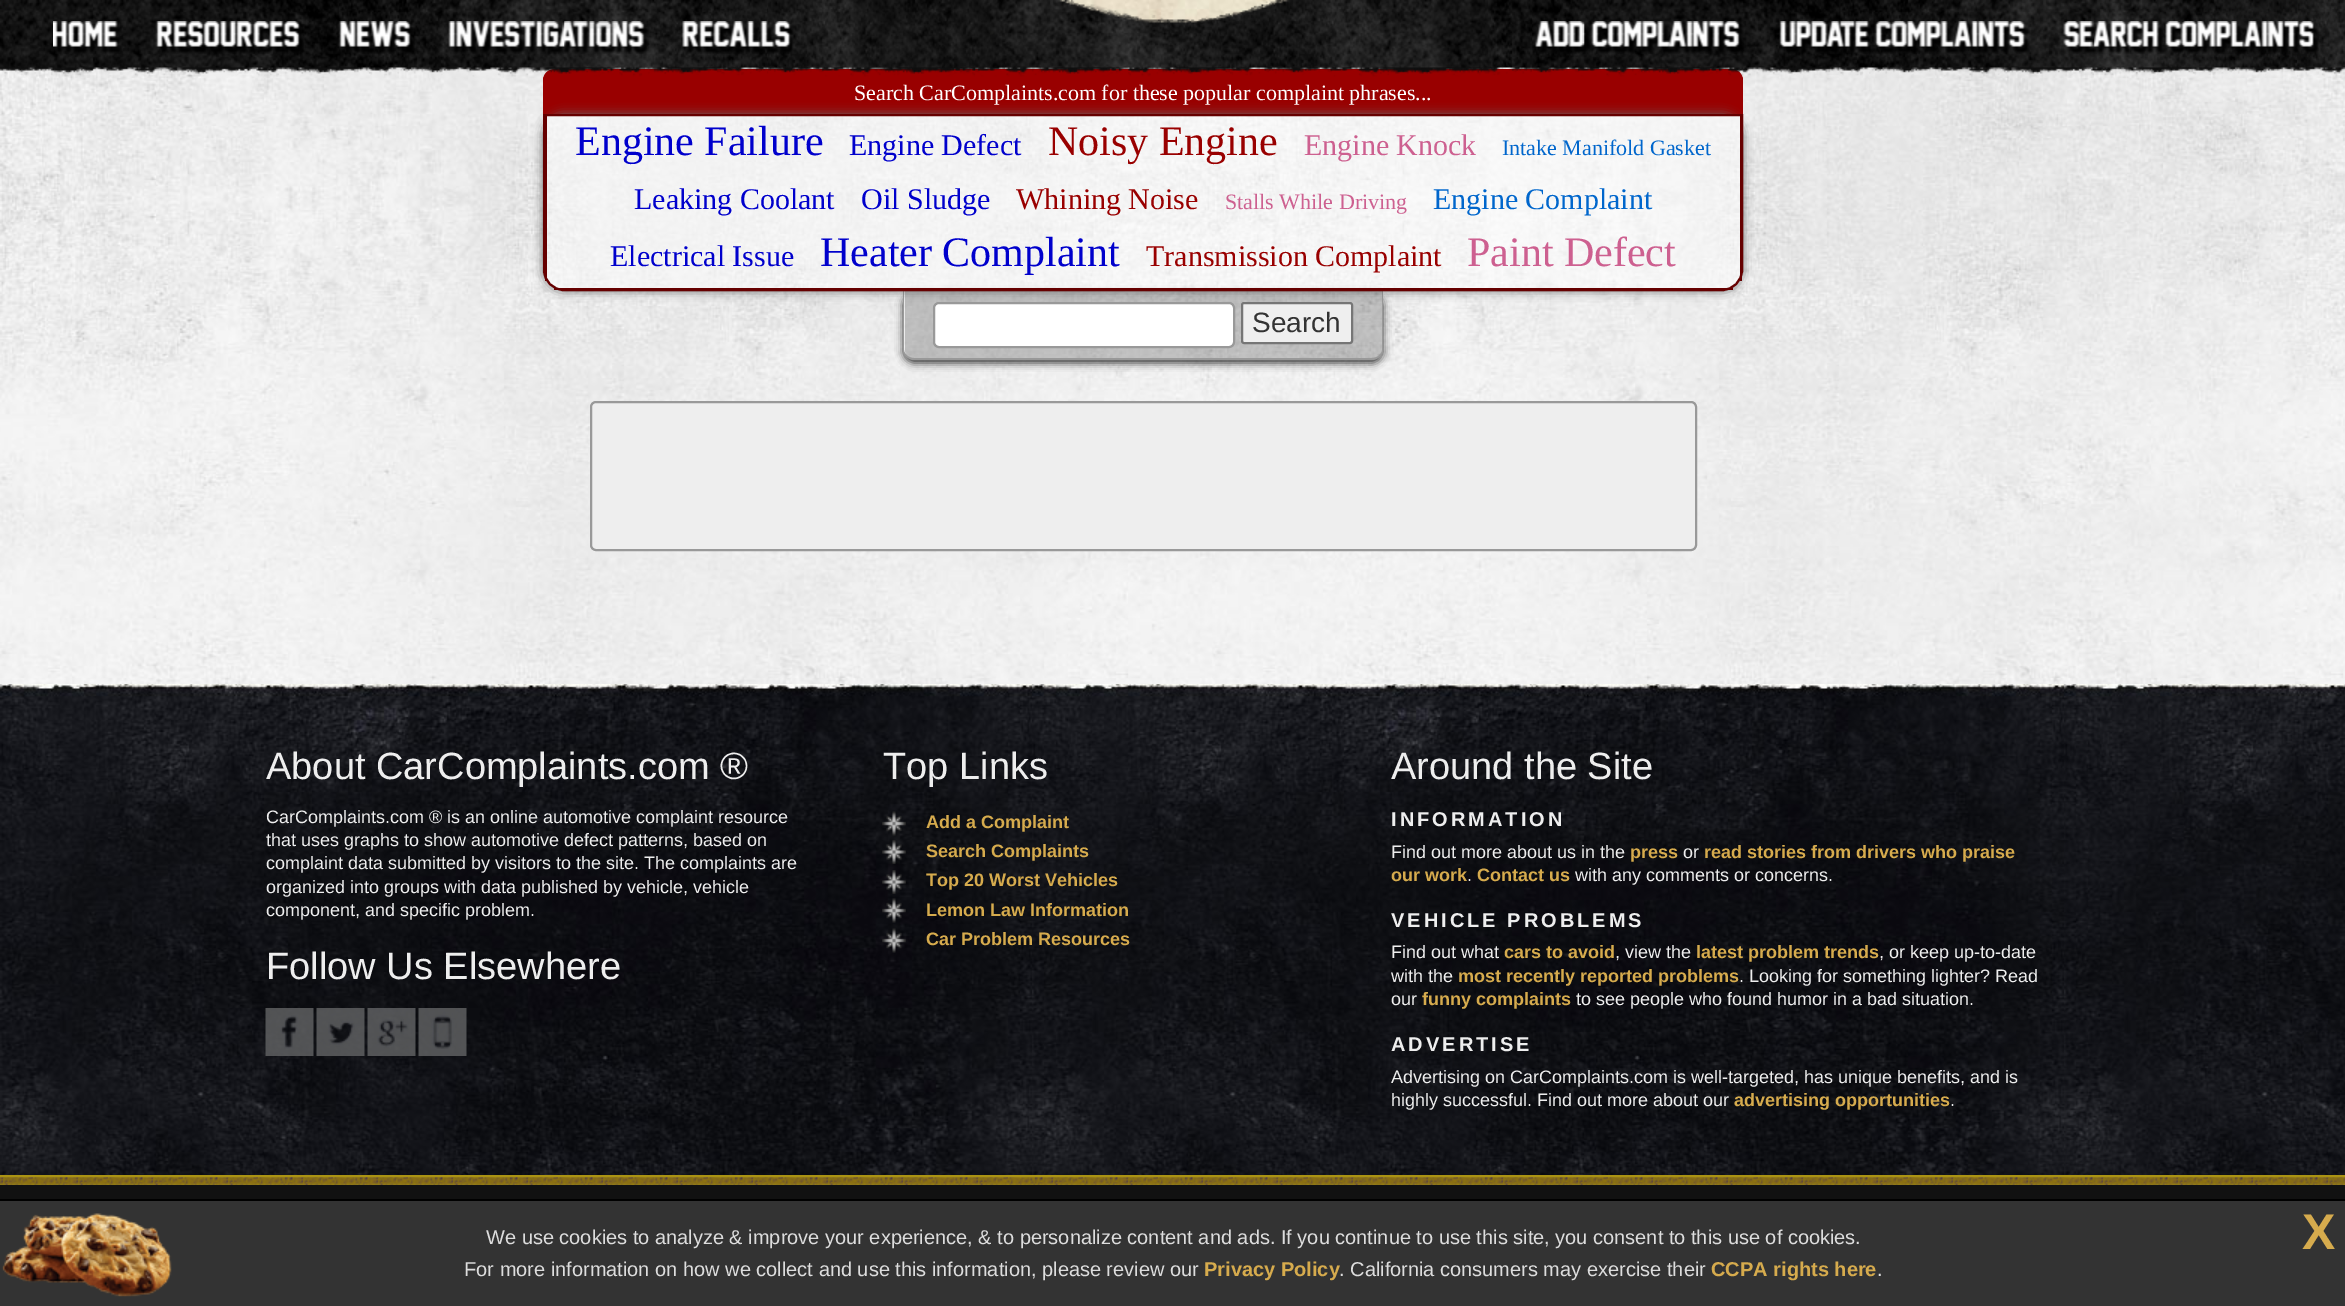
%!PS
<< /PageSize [2345 1306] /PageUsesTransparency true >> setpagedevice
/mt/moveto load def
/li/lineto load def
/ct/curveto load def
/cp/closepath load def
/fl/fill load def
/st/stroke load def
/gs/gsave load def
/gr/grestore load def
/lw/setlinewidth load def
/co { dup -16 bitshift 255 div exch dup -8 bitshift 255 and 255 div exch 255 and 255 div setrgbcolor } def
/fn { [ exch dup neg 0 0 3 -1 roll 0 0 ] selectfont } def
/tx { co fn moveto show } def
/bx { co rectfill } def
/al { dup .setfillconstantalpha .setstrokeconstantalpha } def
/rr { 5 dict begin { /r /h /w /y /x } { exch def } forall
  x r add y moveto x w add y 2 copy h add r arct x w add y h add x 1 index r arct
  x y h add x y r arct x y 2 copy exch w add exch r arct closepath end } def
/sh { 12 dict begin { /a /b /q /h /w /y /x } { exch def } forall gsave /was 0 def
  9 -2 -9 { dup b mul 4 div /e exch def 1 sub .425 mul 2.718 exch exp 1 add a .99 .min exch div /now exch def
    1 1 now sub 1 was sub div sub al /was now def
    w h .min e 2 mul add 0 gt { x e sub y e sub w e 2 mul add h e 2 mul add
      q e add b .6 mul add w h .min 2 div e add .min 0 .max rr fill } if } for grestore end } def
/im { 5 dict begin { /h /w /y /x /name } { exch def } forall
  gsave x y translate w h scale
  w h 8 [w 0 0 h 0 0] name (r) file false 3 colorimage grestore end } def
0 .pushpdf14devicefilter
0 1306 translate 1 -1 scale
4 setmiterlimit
0 0 2345 1306 16#FFFFFF bx
(media/1.raw) 0 43 2345 641 im
(media/12.raw) 991 43 4 2 im
(media/2.raw) 989 0 301 44 im
16#990000 co
554 69 mt 1732 69 li 1738 69 1743 74 1743 80 ct 1743 114 li 543 114 li 543 80 li 543 74 548 69 554 69 ct cp fl
(media/3.raw) 0 0 2345 77 im
(media/4.raw) 53 21 69 33 im
(media/5.raw) 155 21 149 33 im
(media/6.raw) 338 21 77 33 im
(media/7.raw) 448 21 201 33 im
(media/8.raw) 682 21 111 33 im
(media/9.raw) 1535 21 209 33 im
(media/10.raw) 1779 21 251 33 im
(media/11.raw) 2063 21 256 33 im
gs
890 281 mt 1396 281 li 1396 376 li 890 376 li cp 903 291 mt 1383 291 li 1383 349 li 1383 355 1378 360 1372 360 ct 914 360 li 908 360 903 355 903 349 ct cp eoclip newpath
16#333333 co
903 294 480 69 11 4 1 sh
gr
0.2 al
16#000000 co
905 291 mt 1382 291 li 1382 350 li 1382 355 1378 359 1373 359 ct 914 359 li 909 359 905 355 905 350 ct cp fl
1 al
16#999999 co
903 291 mt 1383 291 li 1383 350 li 1383 355 1378 360 1372 360 ct 914 360 li 908 360 903 355 903 350 ct cp 904 291 mt 1382 291 li 1382 350 li 1382 354 1377 358 1372 358 ct 914 358 li 909 358 904 354 904 350 ct cp eofill
16#FFFFFF co
934 303 300 44 5 rr gs fl gr
16#999999 co
2 lw
st
gs
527 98 mt 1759 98 li 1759 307 li 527 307 li cp 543 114 mt 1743 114 li 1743 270 li 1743 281.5 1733.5 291 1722 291 ct 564 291 li 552.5 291 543 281.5 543 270 ct cp eoclip newpath
16#666666 co
543 114 1200 177 21 5 1 sh
gr
0.5 al
16#FFFFFF co
546 116 mt 1740 116 li 1740 270 li 1740 280 1732 288 1722 288 ct 564 288 li 554 288 546 280 546 270 ct cp fl
1 al
16#660000 co
544 115 mt 1742 115 li 1742 270 li 1742 281 1733 290 1722 290 ct 564 290 li 553 290 544 281 544 270 ct cp st
1740 114 2 167 16#660000 bx
554 288 1179 2 16#660000 bx
545 114 2 167 16#660000 bx
16#EFEFEF co
1242 303 110 40 2 rr gs fl gr
16#767676 co
st
16#EEEEEE co
591 402 1105 148 5 rr gs fl gr
16#999999 co
st
(media/13.raw) 0 684 2345 491 im
(media/14.raw) 265 1008 49 48 im
(media/15.raw) 316 1008 49 48 im
(media/16.raw) 367 1008 49 48 im
(media/17.raw) 418 1008 49 48 im
(media/18.raw) 882 811 24 25 im
(media/19.raw) 882 840 24 24 im
(media/20.raw) 882 870 24 24 im
(media/21.raw) 882 898 24 25 im
(media/22.raw) 882 928 24 25 im
0 1185 2345 14 16#111111 bx
(media/23.raw) 0 1177 2345 8 im
0 1175 2345 2 16#AA9313 bx
0 1201 2345 105 16#333333 bx
(media/24.raw) 2 1213 170 84 im
0 1199 2345 2 16#000000 bx
(Search CarComplaints.com for these popular complaint phrases...) 854 100 /LiberationSerif-Regular 22 16#FFFFFF tx
(Engine Failure) 575 155 /LiberationSerif-Regular 42 16#0000CC tx
(Engine Defect) 849 155 /LiberationSerif-Regular 30 16#0000CC tx
(Noisy Engine) 1048 155 /LiberationSerif-Regular 42 16#990000 tx
(Engine Knock) 1304 155 /LiberationSerif-Regular 30 16#CD6090 tx
(Intake Manifold Gasket) 1502 155 /LiberationSerif-Regular 22 16#0066CC tx
(Leaking Coolant) 634 209 /LiberationSerif-Regular 30 16#0000CC tx
(Oil Sludge) 861 209 /LiberationSerif-Regular 30 16#0000CC tx
(Whining Noise) 1016 209 /LiberationSerif-Regular 30 16#990000 tx
(Stalls While Driving) 1225 209 /LiberationSerif-Regular 22 16#CD6090 tx
(Engine Complaint) 1433 209 /LiberationSerif-Regular 30 16#0066CC tx
(Electrical Issue) 610 266 /LiberationSerif-Regular 30 16#0000CC tx
(Heater Complaint) 820 266 /LiberationSerif-Regular 42 16#0000CC tx
(Transmission Complaint) 1146 266 /LiberationSerif-Regular 30 16#990000 tx
(Paint Defect) 1467 266 /LiberationSerif-Regular 42 16#CD6090 tx
(Search) 1252 332 /LiberationSans-Regular 28 16#333333 tx
(About CarComplaints.com ®) 266 779 /LiberationSans-Regular 38 16#EEEEEE tx
(CarComplaints.com ® is an online automotive complaint resource) 266 823 /LiberationSans-Regular 18 16#EEEEEE tx
(that uses graphs to show automotive defect patterns, based on) 266 846 /LiberationSans-Regular 18 16#EEEEEE tx
(complaint data submitted by visitors to the site. The complaints are) 266 869 /LiberationSans-Regular 18 16#EEEEEE tx
(organized into groups with data published by vehicle, vehicle) 266 893 /LiberationSans-Regular 18 16#EEEEEE tx
(component, and specific problem.) 266 916 /LiberationSans-Regular 18 16#EEEEEE tx
(Follow Us Elsewhere) 266 979 /LiberationSans-Regular 38 16#EEEEEE tx
(Top Links) 883 779 /LiberationSans-Regular 38 16#EEEEEE tx
(Add a Complaint) 926 828 /LiberationSans-Bold 18 16#D6AB4D tx
(Search Complaints) 926 857 /LiberationSans-Bold 18 16#D6AB4D tx
(Top 20 Worst Vehicles) 926 886 /LiberationSans-Bold 18 16#D6AB4D tx
(Lemon Law Information) 926 916 /LiberationSans-Bold 18 16#D6AB4D tx
(Car Problem Resources) 926 945 /LiberationSans-Bold 18 16#D6AB4D tx
(Around the Site) 1391 779 /LiberationSans-Regular 38 16#EEEEEE tx
/LiberationSans-Bold 20 fn
1391 826 mt 3 0 (INFORMATION) ashow
(Find out more about us in the) 1391 858 /LiberationSans-Regular 18 16#EEEEEE tx
(press) 1630 858 /LiberationSans-Bold 18 16#D6AB4D tx
(or) 1683 858 /LiberationSans-Regular 18 16#EEEEEE tx
(read stories from drivers who praise) 1704 858 /LiberationSans-Bold 18 16#D6AB4D tx
(our work) 1391 881 /LiberationSans-Bold 18 16#D6AB4D tx
(.) 1467 881 /LiberationSans-Regular 18 16#EEEEEE tx
(Contact us) 1477 881 /LiberationSans-Bold 18 16#D6AB4D tx
(with any comments or concerns.) 1575 881 /LiberationSans-Regular 18 16#EEEEEE tx
/LiberationSans-Bold 20 fn
1391 927 mt 3 0 (VEHICLE PROBLEMS) ashow
(Find out what) 1391 958 /LiberationSans-Regular 18 16#EEEEEE tx
(cars to avoid) 1504 958 /LiberationSans-Bold 18 16#D6AB4D tx
(, view the) 1615 958 /LiberationSans-Regular 18 16#EEEEEE tx
(latest problem trends) 1696 958 /LiberationSans-Bold 18 16#D6AB4D tx
(, or keep up-to-date) 1879 958 /LiberationSans-Regular 18 16#EEEEEE tx
(with the) 1391 982 /LiberationSans-Regular 18 16#EEEEEE tx
(most recently reported problems) 1458 982 /LiberationSans-Bold 18 16#D6AB4D tx
(. Looking for something lighter? Read) 1739 982 /LiberationSans-Regular 18 16#EEEEEE tx
(our) 1391 1005 /LiberationSans-Regular 18 16#EEEEEE tx
(funny complaints) 1422 1005 /LiberationSans-Bold 18 16#D6AB4D tx
(to see people who found humor in a bad situation.) 1576 1005 /LiberationSans-Regular 18 16#EEEEEE tx
/LiberationSans-Bold 20 fn
1391 1051 mt 3 0 (ADVERTISE) ashow
(Advertising on CarComplaints.com is well-targeted, has unique benefits, and is) 1391 1083 /LiberationSans-Regular 18 16#EEEEEE tx
(highly successful. Find out more about our) 1391 1106 /LiberationSans-Regular 18 16#EEEEEE tx
(advertising opportunities) 1734 1106 /LiberationSans-Bold 18 16#D6AB4D tx
(.) 1950 1106 /LiberationSans-Regular 18 16#EEEEEE tx
(We use cookies to analyze & improve your experience, & to personalize content and ads. If you continue to use this site, you consent to this use of cookies.) 486 1244 /LiberationSans-Regular 20 16#DDDDDD tx
(X) 2302 1249 /LiberationSans-Bold 50 16#D6AB4D tx
(For more information on how we collect and use this information, please review our) 464 1276 /LiberationSans-Regular 20 16#DDDDDD tx
(Privacy Policy) 1204 1276 /LiberationSans-Bold 20 16#D6AB4D tx
(. California consumers may exercise their) 1339 1276 /LiberationSans-Regular 20 16#DDDDDD tx
(CCPA rights here) 1711 1276 /LiberationSans-Bold 20 16#D6AB4D tx
(.) 1877 1276 /LiberationSans-Regular 20 16#DDDDDD tx
.poppdf14devicefilter showpage
